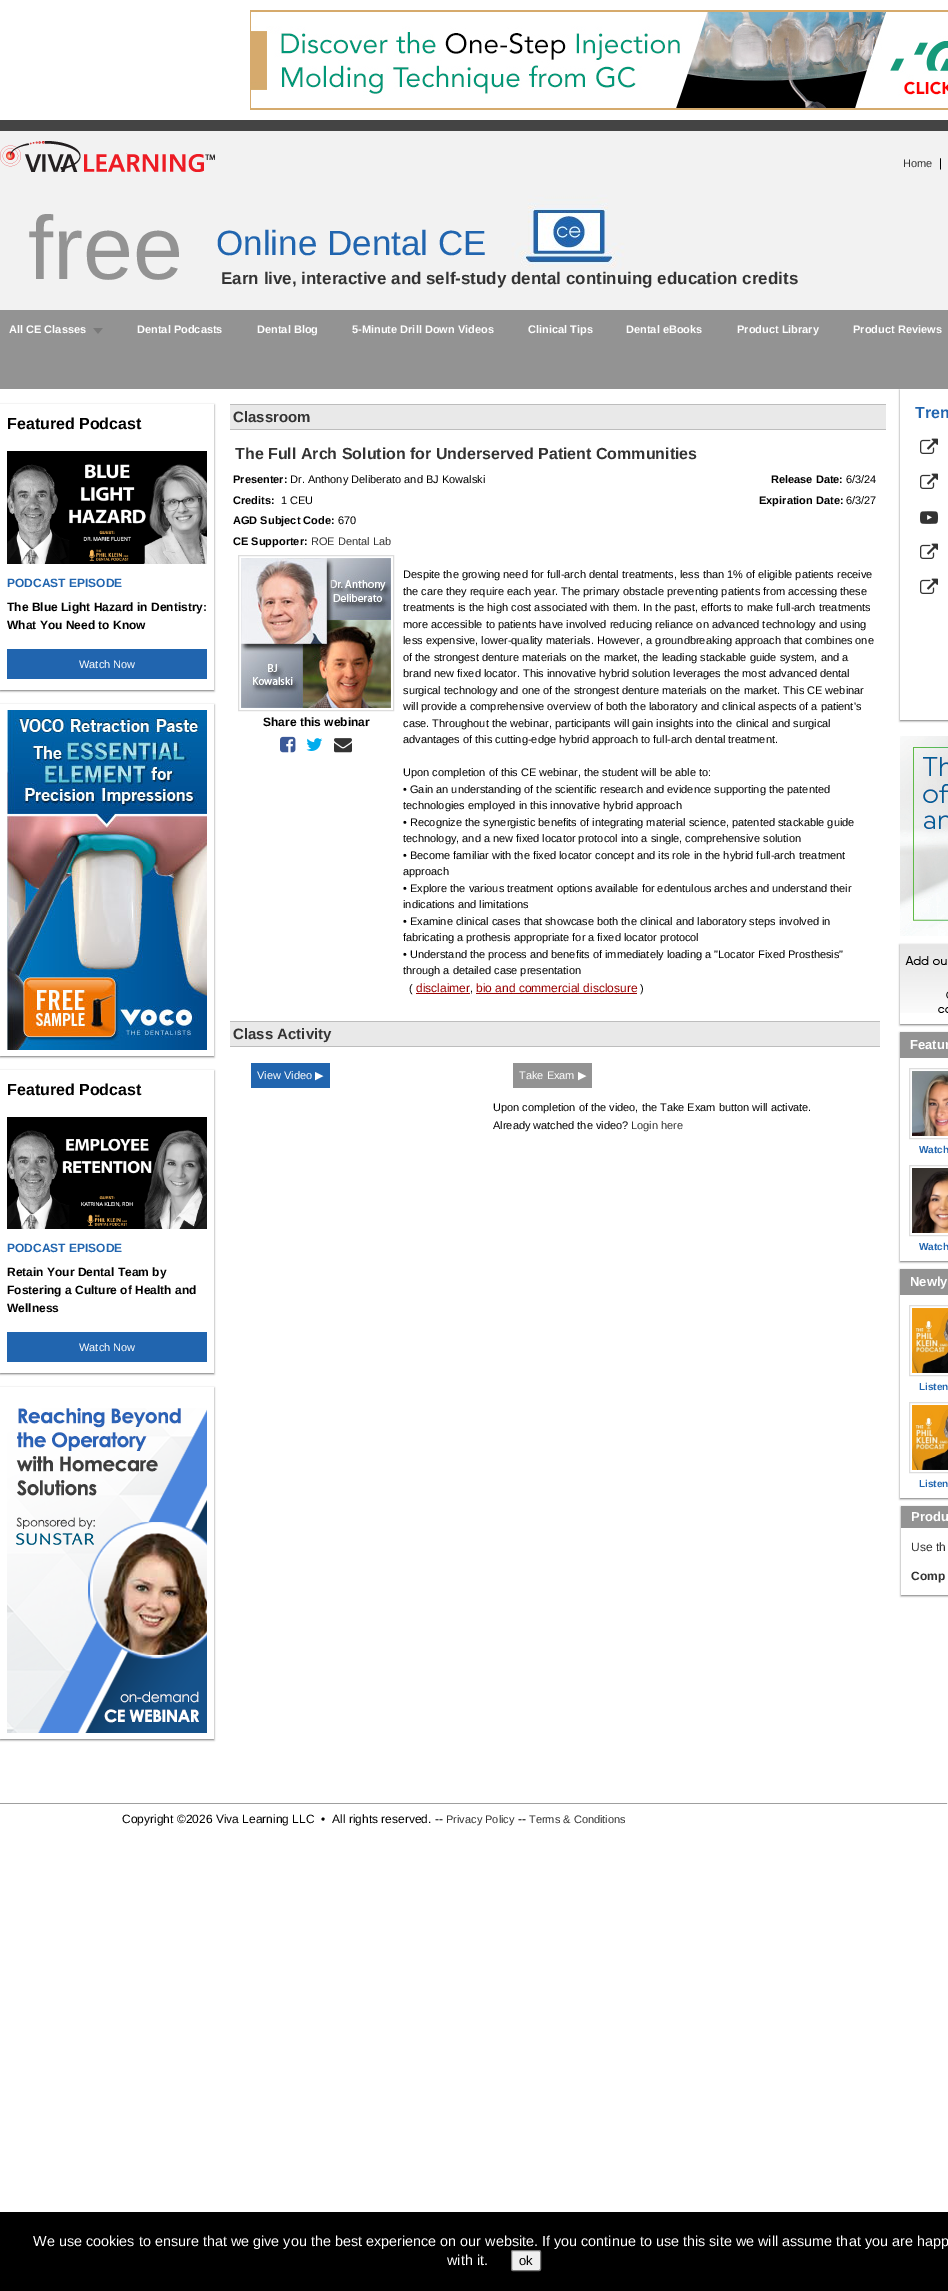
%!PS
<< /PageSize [948 2291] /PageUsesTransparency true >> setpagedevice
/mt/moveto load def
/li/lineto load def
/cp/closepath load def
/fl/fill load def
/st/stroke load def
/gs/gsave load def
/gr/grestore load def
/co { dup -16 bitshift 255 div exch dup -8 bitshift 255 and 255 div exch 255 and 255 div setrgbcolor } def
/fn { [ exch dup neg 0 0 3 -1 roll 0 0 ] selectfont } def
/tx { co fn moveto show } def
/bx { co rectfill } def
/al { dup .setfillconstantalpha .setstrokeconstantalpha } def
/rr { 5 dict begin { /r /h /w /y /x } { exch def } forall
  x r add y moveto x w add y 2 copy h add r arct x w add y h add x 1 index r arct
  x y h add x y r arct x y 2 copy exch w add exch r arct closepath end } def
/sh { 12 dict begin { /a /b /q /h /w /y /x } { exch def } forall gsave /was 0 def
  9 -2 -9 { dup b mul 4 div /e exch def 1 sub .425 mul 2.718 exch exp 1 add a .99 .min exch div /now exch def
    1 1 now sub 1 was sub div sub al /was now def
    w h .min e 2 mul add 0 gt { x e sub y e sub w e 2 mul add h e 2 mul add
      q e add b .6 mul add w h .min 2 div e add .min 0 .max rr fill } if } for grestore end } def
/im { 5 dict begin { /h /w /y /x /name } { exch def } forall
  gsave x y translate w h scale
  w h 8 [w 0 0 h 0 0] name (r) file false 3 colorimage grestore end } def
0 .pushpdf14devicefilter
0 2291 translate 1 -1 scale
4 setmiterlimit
0 0 948 2291 16#FFFFFF bx
(media/1.raw) 250 10 698 100 im
0 120 948 11 16#444444 bx
(media/2.raw) 0 131 948 179 im
(media/3.raw) 0 141 215 31 im
gs
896 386 mt 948 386 li 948 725 li 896 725 li cp 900 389 mt 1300 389 li 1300 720 li 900 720 li cp eoclip newpath
16#777777 co
900 390 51 331 0 1 1 sh
gr
0 310 948 79 16#939393 bx
(media/4.raw) 93 328 10 6 im
gs
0 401 mt 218 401 li 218 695 li 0 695 li cp 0 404 mt 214 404 li 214 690 li 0 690 li cp eoclip newpath
16#777777 co
0 405 214 286 0 1 1 sh
gr
(media/5.raw) 7 451 200 113 im
7 649 200 30 16#2165AF bx
gs
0 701 mt 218 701 li 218 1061 li 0 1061 li cp 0 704 mt 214 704 li 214 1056 li 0 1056 li cp eoclip newpath
16#777777 co
0 705 214 352 0 1 1 sh
gr
(media/6.raw) 7 710 200 340 im
gs
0 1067 mt 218 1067 li 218 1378 li 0 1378 li cp 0 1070 mt 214 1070 li 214 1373 li 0 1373 li cp eoclip newpath
16#777777 co
0 1071 214 303 0 1 1 sh
gr
(media/7.raw) 7 1117 200 112 im
7 1332 200 30 16#2165AF bx
gs
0 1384 mt 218 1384 li 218 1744 li 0 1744 li cp 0 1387 mt 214 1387 li 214 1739 li 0 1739 li cp eoclip newpath
16#777777 co
0 1388 214 352 0 1 1 sh
gr
(media/8.raw) 7 1408 200 325 im
230 405 656 24 16#E9E9E9 bx
230 404 656 1 16#BDBDBD bx
230 429 656 1 16#BDBDBD bx
16#DDDDDD co
238.5 555.5 155 155 rectstroke
(media/9.raw) 241 558 150 150 im
(media/10.raw) 280 736 16 17 im
(media/11.raw) 306 738 17 13 im
(media/12.raw) 334 738 18 15 im
416 993 54 1 16#990000 bx
476 993 161 1 16#990000 bx
230 1022 650 24 16#E9E9E9 bx
230 1021 650 1 16#BDBDBD bx
230 1046 650 1 16#BDBDBD bx
251 1063 79 25 16#2165AF bx
513 1063 79 25 16#939393 bx
(media/13.raw) 920 438 18 16 im
(media/13.raw) 920 473 18 16 im
(media/14.raw) 920 511 18 13 im
(media/13.raw) 920 543 18 16 im
(media/13.raw) 920 578 18 16 im
(media/15.raw) 900 736 48 200 im
gs
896 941 mt 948 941 li 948 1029 li 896 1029 li cp 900 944 mt 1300 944 li 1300 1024 li 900 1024 li cp eoclip newpath
16#777777 co
900 945 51 80 0 1 1 sh
gr
(media/16.raw) 900 944 48 69 im
gs
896 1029 mt 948 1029 li 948 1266 li 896 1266 li cp 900 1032 mt 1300 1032 li 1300 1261 li 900 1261 li cp eoclip newpath
16#777777 co
900 1033 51 229 0 1 1 sh
gr
900 1032 48 26 16#939393 bx
16#DDDDDD co
909.5 1068.5 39 70 rectstroke
(media/17.raw) 912 1071 36 65 im
909.5 1165.5 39 70 rectstroke
(media/18.raw) 912 1168 36 65 im
gs
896 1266 mt 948 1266 li 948 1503 li 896 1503 li cp 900 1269 mt 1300 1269 li 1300 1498 li 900 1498 li cp eoclip newpath
16#777777 co
900 1270 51 229 0 1 1 sh
gr
900 1269 48 26 16#939393 bx
16#DDDDDD co
909.5 1305.5 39 70 rectstroke
(media/19.raw) 912 1308 36 65 im
909.5 1402.5 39 70 rectstroke
(media/19.raw) 912 1405 36 65 im
gs
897 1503 mt 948 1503 li 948 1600 li 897 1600 li cp 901 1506 mt 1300 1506 li 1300 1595 li 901 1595 li cp eoclip newpath
16#777777 co
901 1507 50 89 0 1 1 sh
gr
901 1506 47 22 16#939393 bx
0 1803 948 1 16#9F9F9F bx
947 1803 1 1 16#EEEEEE bx
0 2212 948 79 16#000000 bx
16#EFEFEF co
511.5 2250.5 29 20 1.5 rr gs fl gr
16#767676 co
st
(Home) 903 167 /LiberationSans-Regular 11 16#333333 tx
(|) 939 167 /LiberationSans-Regular 12 16#000000 tx
(free) 28 279 /LiberationSans-Regular 90 16#939393 tx
(Online Dental CE) 216 255 /LiberationSans-Regular 35 16#2165AF tx
(Earn live, interactive and self-study dental continuing education credits) 221 284 /LiberationSans-Bold 17 16#333333 tx
(All CE Classes) 9 333 /LiberationSans-Bold 11 16#FFFFFF tx
(Dental Podcasts) 137 333 /LiberationSans-Bold 11 16#FFFFFF tx
(Dental Blog) 257 333 /LiberationSans-Bold 11 16#FFFFFF tx
(5-Minute Drill Down Videos) 352 333 /LiberationSans-Bold 11 16#FFFFFF tx
(Clinical Tips) 528 333 /LiberationSans-Bold 11 16#FFFFFF tx
(Dental eBooks) 626 333 /LiberationSans-Bold 11 16#FFFFFF tx
(Product Library) 737 333 /LiberationSans-Bold 11 16#FFFFFF tx
(Product Reviews) 853 333 /LiberationSans-Bold 11 16#FFFFFF tx
(Featured Podcast) 7 429 /LiberationSans-Bold 16 16#000000 tx
(PODCAST EPISODE) 7 587 /LiberationSans-Bold 12 16#2165AF tx
(The Blue Light Hazard in Dentistry:) 7 611 /LiberationSans-Bold 12 16#000000 tx
(What You Need to Know) 7 629 /LiberationSans-Bold 12 16#000000 tx
(Watch Now) 79 668 /LiberationSans-Regular 11 16#FFFFFF tx
(Featured Podcast) 7 1095 /LiberationSans-Bold 16 16#000000 tx
(PODCAST EPISODE) 7 1252 /LiberationSans-Bold 12 16#2165AF tx
(Retain Your Dental Team by) 7 1276 /LiberationSans-Bold 12 16#000000 tx
(Fostering a Culture of Health and) 7 1294 /LiberationSans-Bold 12 16#000000 tx
(Wellness) 7 1312 /LiberationSans-Bold 12 16#000000 tx
(Watch Now) 79 1351 /LiberationSans-Regular 11 16#FFFFFF tx
(Classroom) 233 422 /LiberationSans-Bold 15 16#333333 tx
(The Full Arch Solution for Underserved Patient Communities) 235 459 /LiberationSans-Bold 16 16#333333 tx
(Presenter:) 233 483 /LiberationSans-Bold 11 16#000000 tx
(Dr. Anthony Deliberato and BJ Kowalski) 290 483 /LiberationSans-Regular 11 16#000000 tx
(Release Date:) 771 483 /LiberationSans-Bold 11 16#000000 tx
(6/3/24) 846 483 /LiberationSans-Regular 11 16#000000 tx
(Credits:) 233 504 /LiberationSans-Bold 11 16#000000 tx
(1 CEU) 281 504 /LiberationSans-Regular 11 16#000000 tx
(Expiration Date:) 759 504 /LiberationSans-Bold 11 16#000000 tx
(6/3/27) 846 504 /LiberationSans-Regular 11 16#000000 tx
(AGD Subject Code:) 233 524 /LiberationSans-Bold 11 16#000000 tx
(670) 338 524 /LiberationSans-Regular 11 16#000000 tx
(CE Supporter:) 233 545 /LiberationSans-Bold 11 16#000000 tx
(ROE Dental Lab) 311 545 /LiberationSans-Regular 11 16#333333 tx
(Share this webinar) 263 726 /LiberationSans-Bold 12 16#000000 tx
(Despite the growing need for full-arch dental treatments, less than 1% of eligible patients receive) 403 578 /LiberationSans-Regular 11 16#000000 tx
(the care they require each year. The primary obstacle preventing patients from accessing these) 403 595 /LiberationSans-Regular 11 16#000000 tx
(treatments is the high cost associated with them. In the past, efforts to make full-arch treatments) 403 611 /LiberationSans-Regular 11 16#000000 tx
(more accessible to patients have involved reducing reliance on advanced technology and using) 403 628 /LiberationSans-Regular 11 16#000000 tx
(less expensive, lower-quality materials. However, a groundbreaking approach that combines one) 403 644 /LiberationSans-Regular 11 16#000000 tx
(of the strongest denture materials on the market, the leading stackable guide system, and a) 403 661 /LiberationSans-Regular 11 16#000000 tx
(brand new fixed locator. This innovative hybrid solution leverages the most advanced dental) 403 677 /LiberationSans-Regular 11 16#000000 tx
(surgical technology and one of the strongest denture materials on the market. This CE webinar) 403 694 /LiberationSans-Regular 11 16#000000 tx
(will provide a comprehensive overview of both the laboratory and clinical aspects of a patient's) 403 710 /LiberationSans-Regular 11 16#000000 tx
(case. Throughout the webinar, participants will gain insights into the clinical and surgical) 403 727 /LiberationSans-Regular 11 16#000000 tx
(advantages of this cutting-edge hybrid approach to full-arch dental treatment.) 403 743 /LiberationSans-Regular 11 16#000000 tx
(Upon completion of this CE webinar, the student will be able to:) 403 776 /LiberationSans-Regular 11 16#000000 tx
(• Gain an understanding of the scientific research and evidence supporting the patented) 403 793 /LiberationSans-Regular 11 16#000000 tx
(technologies employed in this innovative hybrid approach) 403 809 /LiberationSans-Regular 11 16#000000 tx
(• Recognize the synergistic benefits of integrating material science, patented stackable guide) 403 826 /LiberationSans-Regular 11 16#000000 tx
(technology, and a new fixed locator protocol into a single, comprehensive solution) 403 842 /LiberationSans-Regular 11 16#000000 tx
(• Become familiar with the fixed locator concept and its role in the hybrid full-arch treatment) 403 859 /LiberationSans-Regular 11 16#000000 tx
(approach) 403 875 /LiberationSans-Regular 11 16#000000 tx
(• Explore the various treatment options available for edentulous arches and understand their) 403 892 /LiberationSans-Regular 11 16#000000 tx
(indications and limitations) 403 908 /LiberationSans-Regular 11 16#000000 tx
(• Examine clinical cases that showcase both the clinical and laboratory steps involved in) 403 925 /LiberationSans-Regular 11 16#000000 tx
(fabricating a prothesis appropriate for a fixed locator protocol) 403 941 /LiberationSans-Regular 11 16#000000 tx
(• Understand the process and benefits of immediately loading a "Locator Fixed Prosthesis") 403 958 /LiberationSans-Regular 11 16#000000 tx
(through a detailed case presentation) 403 974 /LiberationSans-Regular 11 16#000000 tx
(\() 409 992 /LiberationSans-Regular 11 16#000000 tx
(disclaimer) 416 992 /LiberationSans-Regular 12 16#990000 tx
(,) 470 992 /LiberationSans-Regular 11 16#000000 tx
(bio and commercial disclosure) 476 992 /LiberationSans-Regular 12 16#990000 tx
(\)) 640 992 /LiberationSans-Regular 11 16#000000 tx
(Class Activity) 233 1039 /LiberationSans-Bold 15 16#333333 tx
(View Video) 257 1079 /LiberationSans-Regular 11 16#FFFFFF tx
(▶) 315 1079 /DejaVuSans-Regular 11 16#FFFFFF tx
(Take Exam) 519 1079 /LiberationSans-Regular 11 16#FFFFFF tx
(▶) 578 1079 /DejaVuSans-Regular 11 16#FFFFFF tx
(Upon completion of the video, the Take Exam button will activate.) 493 1111 /LiberationSans-Regular 11 16#000000 tx
(Already watched the video?) 493 1129 /LiberationSans-Regular 11 16#000000 tx
(Login here) 631 1129 /LiberationSans-Regular 11 16#333333 tx
(Tren) 915 418 /LiberationSans-Bold 16 16#2165AF tx
(Featur) 910 1049 /LiberationSans-Bold 13 16#FFFFFF tx
(Watch) 919 1153 /LiberationSans-Bold 10 16#2165AF tx
(Watch) 919 1250 /LiberationSans-Bold 10 16#2165AF tx
(Newly) 910 1286 /LiberationSans-Bold 13 16#FFFFFF tx
(Listen) 919 1390 /LiberationSans-Bold 10 16#2165AF tx
(Listen) 919 1487 /LiberationSans-Bold 10 16#2165AF tx
(Produ) 911 1521 /LiberationSans-Bold 13 16#FFFFFF tx
(Use th) 911 1551 /LiberationSans-Regular 12 16#333333 tx
(Comp) 911 1580 /LiberationSans-Bold 12 16#333333 tx
(Copyright ©2026 Viva Learning LLC) 122 1823 /LiberationSans-Regular 12 16#000000 tx
(•) 321 1823 /LiberationSans-Regular 12 16#000000 tx
(All rights reserved. --) 332 1823 /LiberationSans-Regular 12 16#000000 tx
(Privacy Policy) 446 1823 /LiberationSans-Regular 11 16#333333 tx
(--) 518 1823 /LiberationSans-Regular 12 16#000000 tx
(Terms & Conditions) 529 1823 /LiberationSans-Regular 11 16#333333 tx
(We use cookies to ensure that we give you the best experience on our website. If you continue to use this site we will assume that you are happ) 33 2246 /LiberationSans-Regular 14.4 16#FFFFFF tx
(with it.) 447 2265 /LiberationSans-Regular 14.4 16#FFFFFF tx
(ok) 519 2265 /LiberationSans-Regular 13 16#000000 tx
.poppdf14devicefilter showpage
